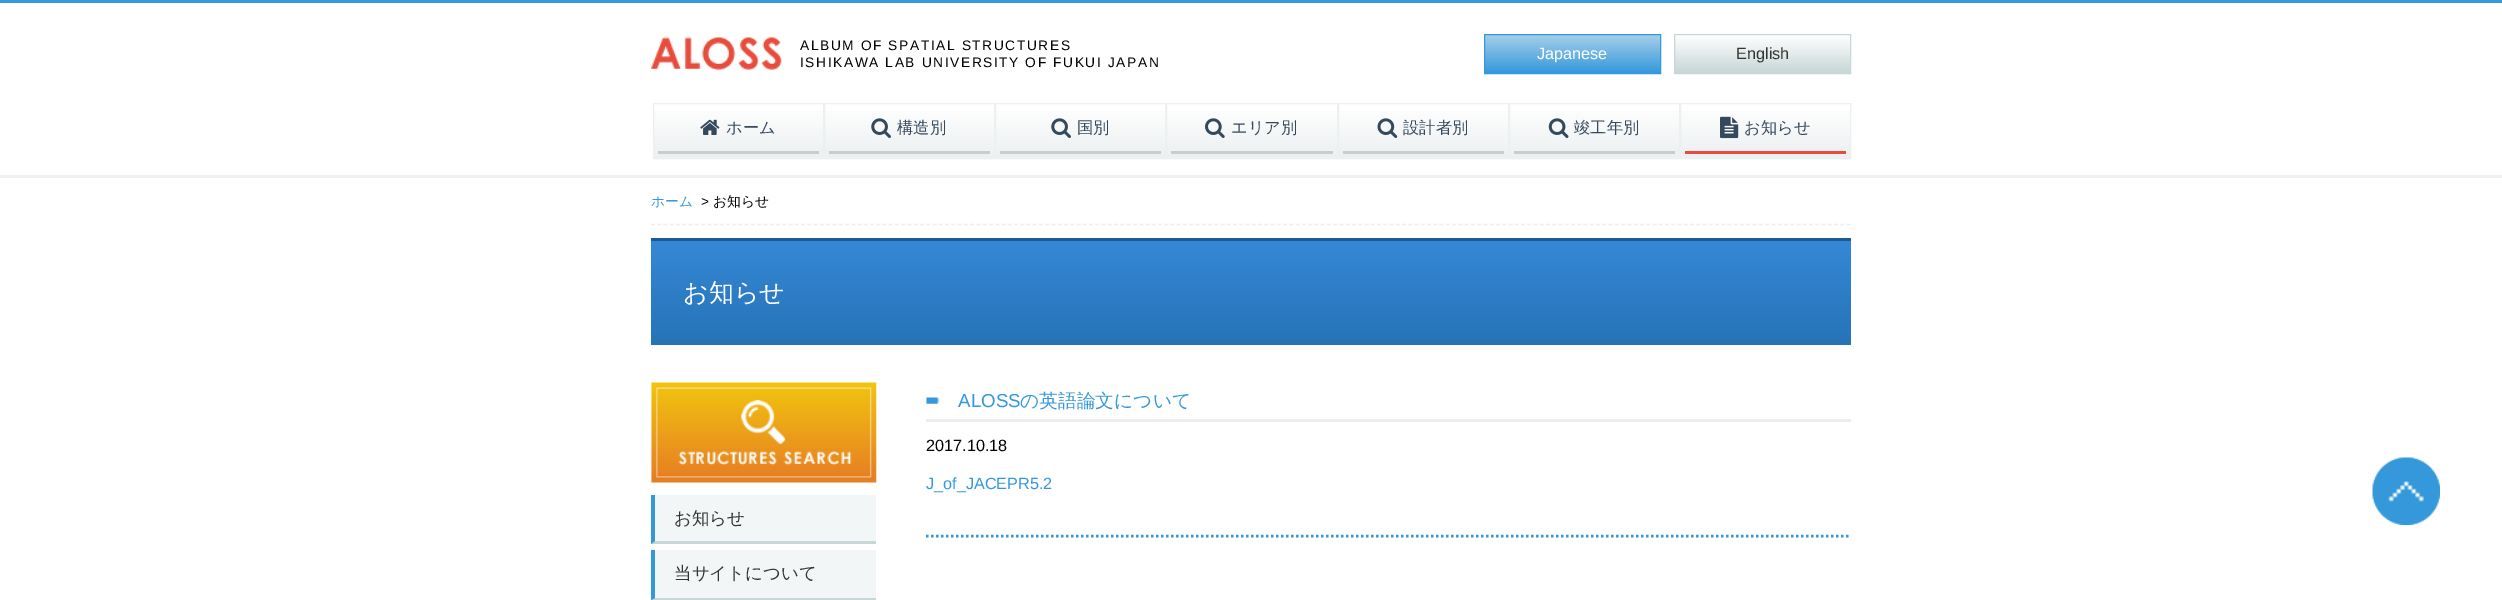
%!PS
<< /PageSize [2502 600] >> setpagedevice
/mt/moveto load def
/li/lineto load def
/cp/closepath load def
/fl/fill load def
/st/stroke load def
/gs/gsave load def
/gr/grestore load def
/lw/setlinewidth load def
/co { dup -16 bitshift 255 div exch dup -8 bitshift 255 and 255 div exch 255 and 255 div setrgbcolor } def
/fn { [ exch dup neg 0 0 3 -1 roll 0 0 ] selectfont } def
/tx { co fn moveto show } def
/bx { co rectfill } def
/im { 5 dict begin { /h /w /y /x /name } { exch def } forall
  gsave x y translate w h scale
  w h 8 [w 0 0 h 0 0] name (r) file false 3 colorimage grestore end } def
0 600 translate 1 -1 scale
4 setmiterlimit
0 0 2502 600 16#FFFFFF bx
0 0 2502 3 16#3498DB bx
0 175 2502 3 16#ECF0F1 bx
(media/1.raw) 651 37 131 33 im
gs 1485 35 mt 1660 35 li 1660 73 li 1485 73 li cp clip newpath
<< /ShadingType 2 /ColorSpace /DeviceRGB /Coords [1573 35 1573 73] /Extend [true true] /Function << /FunctionType 2 /Domain [0 1] /C0 [.651 .812 .914] /C1 [.204 .596 .859] /N 1 >> >> shfill gr
16#3498DB co
1484.5 34.5 176 39 rectstroke
gs 1675 37 mt 1850 37 li 1850 73 li 1675 73 li cp clip newpath
<< /ShadingType 2 /ColorSpace /DeviceRGB /Coords [1763 35 1763 73] /Extend [true true] /Function << /FunctionType 2 /Domain [0 1] /C0 [1 1 1] /C1 [.78 .839 .839] /N 1 >> >> shfill gr
16#C7D6D6 co
1674.5 34.5 176 39 rectstroke
gs 654 111 mt 823 111 li 823 158 li 654 158 li cp clip newpath
<< /ShadingType 2 /ColorSpace /DeviceRGB /Coords [738 104 738 158] /Extend [true true] /Function << /FunctionType 2 /Domain [0 1] /C0 [1 1 1] /C1 [.925 .941 .945] /N 1 >> >> shfill gr
16#ECF0F1 co
653.5 103.5 170 55 rectstroke
658 151 161 3 16#CCCCCC bx
(media/2.raw) 700 119 20 16 im
gs 825 111 mt 994 111 li 994 158 li 825 158 li cp clip newpath
<< /ShadingType 2 /ColorSpace /DeviceRGB /Coords [909 104 909 158] /Extend [true true] /Function << /FunctionType 2 /Domain [0 1] /C0 [1 1 1] /C1 [.925 .941 .945] /N 1 >> >> shfill gr
16#ECF0F1 co
824.5 103.5 170 55 rectstroke
829 151 161 3 16#CCCCCC bx
(media/3.raw) 871 118 20 20 im
gs 996 111 mt 1165 111 li 1165 158 li 996 158 li cp clip newpath
<< /ShadingType 2 /ColorSpace /DeviceRGB /Coords [1081 104 1081 158] /Extend [true true] /Function << /FunctionType 2 /Domain [0 1] /C0 [1 1 1] /C1 [.925 .941 .945] /N 1 >> >> shfill gr
16#ECF0F1 co
995.5 103.5 170 55 rectstroke
1000 151 161 3 16#CCCCCC bx
(media/3.raw) 1051 118 20 20 im
gs 1167 111 mt 1337 111 li 1337 158 li 1167 158 li cp clip newpath
<< /ShadingType 2 /ColorSpace /DeviceRGB /Coords [1252 104 1252 158] /Extend [true true] /Function << /FunctionType 2 /Domain [0 1] /C0 [1 1 1] /C1 [.925 .941 .945] /N 1 >> >> shfill gr
16#ECF0F1 co
1166.5 103.5 171 55 rectstroke
1171 151 162 3 16#CCCCCC bx
(media/4.raw) 1205 118 20 20 im
gs 1339 111 mt 1508 111 li 1508 158 li 1339 158 li cp clip newpath
<< /ShadingType 2 /ColorSpace /DeviceRGB /Coords [1423 104 1423 158] /Extend [true true] /Function << /FunctionType 2 /Domain [0 1] /C0 [1 1 1] /C1 [.925 .941 .945] /N 1 >> >> shfill gr
16#ECF0F1 co
1338.5 103.5 170 55 rectstroke
1343 151 161 3 16#CCCCCC bx
(media/5.raw) 1377 118 21 20 im
gs 1510 111 mt 1679 111 li 1679 158 li 1510 158 li cp clip newpath
<< /ShadingType 2 /ColorSpace /DeviceRGB /Coords [1594 104 1594 158] /Extend [true true] /Function << /FunctionType 2 /Domain [0 1] /C0 [1 1 1] /C1 [.925 .941 .945] /N 1 >> >> shfill gr
16#ECF0F1 co
1509.5 103.5 170 55 rectstroke
1514 151 161 3 16#CCCCCC bx
(media/6.raw) 1548 118 21 20 im
gs 1681 111 mt 1850 111 li 1850 158 li 1681 158 li cp clip newpath
<< /ShadingType 2 /ColorSpace /DeviceRGB /Coords [1766 104 1766 158] /Extend [true true] /Function << /FunctionType 2 /Domain [0 1] /C0 [1 1 1] /C1 [.925 .941 .945] /N 1 >> >> shfill gr
16#ECF0F1 co
1680.5 103.5 170 55 rectstroke
1685 151 161 3 16#E74C3C bx
(media/7.raw) 1720 116 19 23 im
16#EEEEEE co
1.2 lw
[3.75 2.51] 0 setdash
651 224.5 mt 1851 224.5 li st
gs 651 241 mt 1851 241 li 1851 345 li 651 345 li cp clip newpath
<< /ShadingType 2 /ColorSpace /DeviceRGB /Coords [1251 240 1251 345] /Extend [true true] /Function << /FunctionType 2 /Domain [0 1] /C0 [.208 .533 .839] /C1 [.149 .451 .718] /N 1 >> >> shfill gr
651 238 1200 3 16#1F5A8F bx
16#3498DB co
2.5 lw
[2.5 2.5] 0 setdash
926 536 mt 1851 536 li st
(media/8.raw) 926 397 13 7 im
926 419 925 3 16#EEEDEE bx
(media/9.raw) 651 382 226 101 im
651 495 225 49 16#F3F6F6 bx
16#C7D6D6 co
876 544 mt 651 544 li 655 541 li 876 541 li cp fl
16#3498DB co
651 544 mt 651 495 li 655 495 li 655 541 li cp fl
651 550 225 50 16#F3F6F6 bx
16#C7D6D6 co
876 600 mt 651 600 li 655 598 li 876 598 li cp fl
16#3498DB co
651 600 mt 651 550 li 655 550 li 655 598 li cp fl
(media/10.raw) 2372 457 68 68 im
/LiberationSans-Regular 13.75 fn
16#000000 co
800 50 mt 1.6 0 (ALBUM OF SPATIAL STRUCTURES) ashow
800 67 mt 1.6 0 (ISHIKAWA LAB UNIVERSITY OF FUKUI JAPAN) ashow
(Japanese) 1537 59 /LiberationSans-Regular 16.25 16#FFFFFF tx
(English) 1736 59 /LiberationSans-Regular 16.25 16#333333 tx
(ホーム) 726 133 /WenQuanYiZenHei-Medium 16.25 16#34495E tx
(構造別) 897 133 /WenQuanYiZenHei-Medium 16.25 16#34495E tx
(国別) 1077 133 /WenQuanYiZenHei-Medium 16.25 16#34495E tx
(エリア別) 1231 133 /WenQuanYiZenHei-Medium 16.25 16#34495E tx
(設計者別) 1403 133 /WenQuanYiZenHei-Medium 16.25 16#34495E tx
(竣工年別) 1574 133 /WenQuanYiZenHei-Medium 16.25 16#34495E tx
(お知らせ) 1744 133 /WenQuanYiZenHei-Medium 16.25 16#34495E tx
(ホーム) 651 206 /WenQuanYiZenHei-Medium 13.75 16#3498DB tx
(>) 701 206 /LiberationSans-Regular 13.75 16#000000 tx
(お知らせ) 713 206 /WenQuanYiZenHei-Medium 13.75 16#000000 tx
(お知らせ) 683 301 /WenQuanYiZenHei-Medium 25 16#FFFFFF tx
(ALOSS) 958 407 /LiberationSans-Regular 18.75 16#3498DB tx
(の英語論文について) 1020 407 /WenQuanYiZenHei-Medium 18.75 16#3498DB tx
(2017.10.18) 926 451 /LiberationSans-Regular 16.25 16#000000 tx
(J_of_JACEPR5.2) 926 489 /LiberationSans-Regular 16.25 16#3498DB tx
(お知らせ) 674 524 /WenQuanYiZenHei-Medium 17.5 16#333333 tx
(当サイトについて) 674 579 /WenQuanYiZenHei-Medium 17.5 16#333333 tx
showpage
